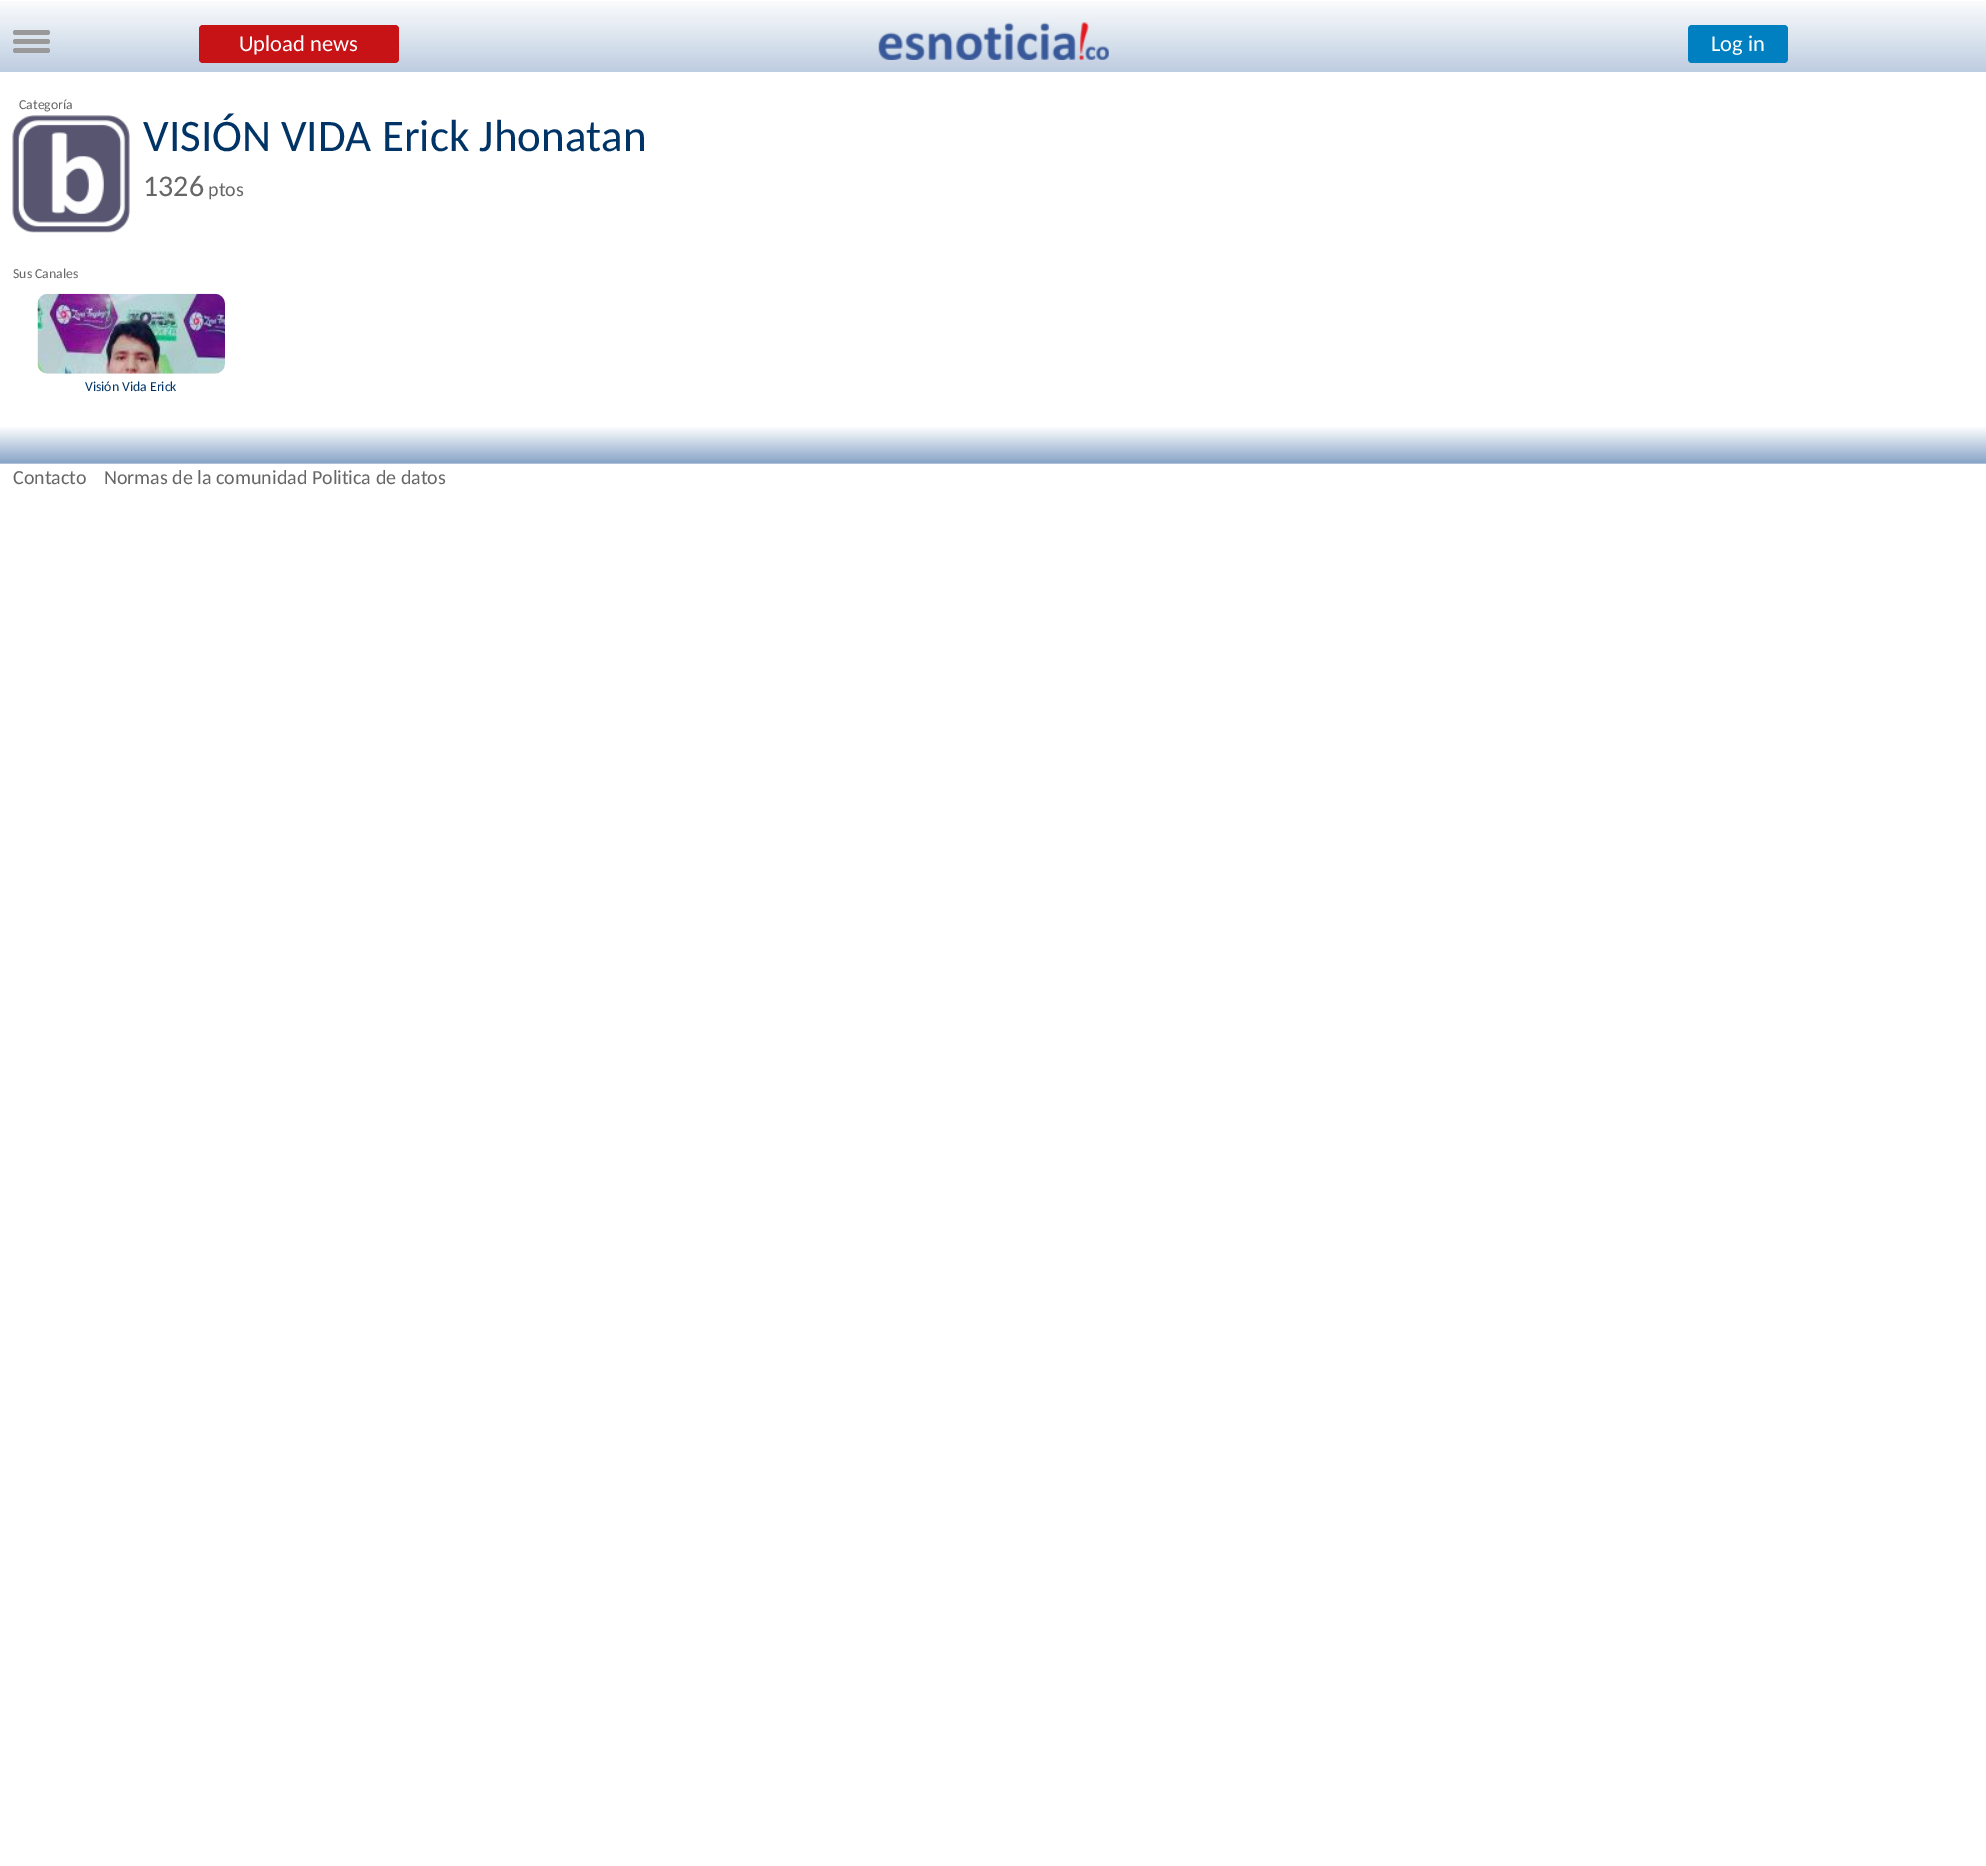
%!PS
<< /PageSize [1986 1866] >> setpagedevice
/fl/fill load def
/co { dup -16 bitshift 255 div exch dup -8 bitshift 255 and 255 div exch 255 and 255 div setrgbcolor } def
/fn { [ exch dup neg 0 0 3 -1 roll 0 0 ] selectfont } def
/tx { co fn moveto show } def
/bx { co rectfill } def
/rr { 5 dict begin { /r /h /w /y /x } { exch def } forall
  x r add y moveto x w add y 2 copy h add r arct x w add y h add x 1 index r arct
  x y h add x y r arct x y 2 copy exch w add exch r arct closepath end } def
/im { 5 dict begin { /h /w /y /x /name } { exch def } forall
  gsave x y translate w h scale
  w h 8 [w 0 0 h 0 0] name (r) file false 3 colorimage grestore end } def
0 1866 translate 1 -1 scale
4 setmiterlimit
0 0 1986 1866 16#FFFFFF bx
(media/1.raw) 0 1 1986 71 im
16#999999 co
13 30 37 5 2.5 rr fl
13 39 37 5 2.5 rr fl
13 48 37 5 2.5 rr fl
(media/2.raw) 878 22 231 38 im
16#C71216 co
199 25 200 38 4 rr fl
16#0080C0 co
1688 25 100 38 4 rr fl
(media/3.raw) 12 115 118 118 im
(media/4.raw) 37 293 188 81 im
(media/5.raw) 0 427 1986 37 im
(Upload news) 239 51 /Carlito-Regular 22.5 16#FFFFFF tx
(Log in) 1711 51 /Carlito-Regular 22.5 16#FFFFFF tx
(Categoría) 19 109 /Carlito-Regular 13.75 16#666666 tx
(VISIÓN VIDA Erick Jhonatan) 143 151 /Carlito-Regular 45 16#003366 tx
(1326) 143 196 /Carlito-Regular 30 16#666666 tx
(ptos) 208 196 /Carlito-Regular 20 16#666666 tx
(Sus Canales) 13 278 /Carlito-Regular 13.75 16#666666 tx
(Visión Vida Erick) 85 391 /Carlito-Regular 13.75 16#003366 tx
(Contacto) 13 484 /Carlito-Regular 20 16#666666 tx
(Normas de la comunidad Politica de datos) 104 484 /Carlito-Regular 20 16#666666 tx
showpage
